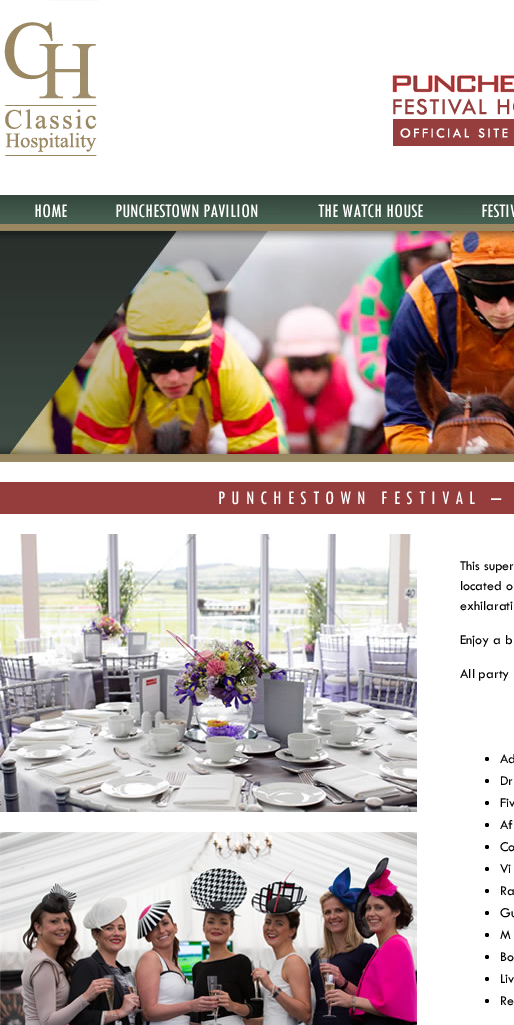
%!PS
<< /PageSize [514 1025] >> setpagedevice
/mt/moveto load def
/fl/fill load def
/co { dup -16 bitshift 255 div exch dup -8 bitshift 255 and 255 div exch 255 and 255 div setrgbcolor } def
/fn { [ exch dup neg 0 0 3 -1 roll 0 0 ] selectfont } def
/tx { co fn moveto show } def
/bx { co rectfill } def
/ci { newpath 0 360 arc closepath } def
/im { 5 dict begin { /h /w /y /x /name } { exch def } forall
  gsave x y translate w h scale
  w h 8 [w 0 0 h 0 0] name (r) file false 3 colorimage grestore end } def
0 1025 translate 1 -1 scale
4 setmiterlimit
0 0 514 1025 16#FFFFFF bx
(media/1.raw) 4 0 95 156 im
(media/2.raw) 392 75 122 71 im
(media/3.raw) 0 195 514 36 im
(media/4.raw) 35 204 32 14 im
(media/5.raw) 116 204 163 27 im
(media/6.raw) 279 204 180 27 im
(media/7.raw) 459 204 55 27 im
(media/8.raw) 0 231 514 223 im
(media/9.raw) 0 454 514 8 im
0 482 514 32 16#953D3C bx
(media/10.raw) 0 534 417 278 im
(media/11.raw) 0 832 417 193 im
16#000000 co
487 759 2 ci fl
487 781 2 ci fl
487 803 2 ci fl
487 825 2 ci fl
487 847 2 ci fl
487 869 2 ci fl
487 891 2 ci fl
487 913 2 ci fl
487 935 2 ci fl
487 957 2 ci fl
487 979 2 ci fl
487 1001 2 ci fl
/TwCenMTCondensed-Regular 20 fn
16#FFFFFF co
218 504 mt 6 0 (PUNCHESTOWN FESTIVAL –) ashow
(This super) 460 570 /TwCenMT-Regular 14 16#000000 tx
(located o) 460 590 /TwCenMT-Regular 14 16#000000 tx
(exhilarati) 460 610 /TwCenMT-Regular 14 16#000000 tx
(Enjoy a b) 460 644 /TwCenMT-Regular 14 16#000000 tx
(All party) 460 678 /TwCenMT-Regular 14 16#000000 tx
(Ad) 500 763 /TwCenMT-Regular 14 16#000000 tx
(Dr) 500 785 /TwCenMT-Regular 14 16#000000 tx
(Fiv) 500 807 /TwCenMT-Regular 14 16#000000 tx
(Af) 500 829 /TwCenMT-Regular 14 16#000000 tx
(Co) 500 851 /TwCenMT-Regular 14 16#000000 tx
(Vi) 500 873 /TwCenMT-Regular 14 16#000000 tx
(Ra) 500 895 /TwCenMT-Regular 14 16#000000 tx
(Gu) 500 917 /TwCenMT-Regular 14 16#000000 tx
(M) 500 939 /TwCenMT-Regular 14 16#000000 tx
(Bo) 500 961 /TwCenMT-Regular 14 16#000000 tx
(Liv) 500 983 /TwCenMT-Regular 14 16#000000 tx
(Re) 500 1005 /TwCenMT-Regular 14 16#000000 tx
showpage
